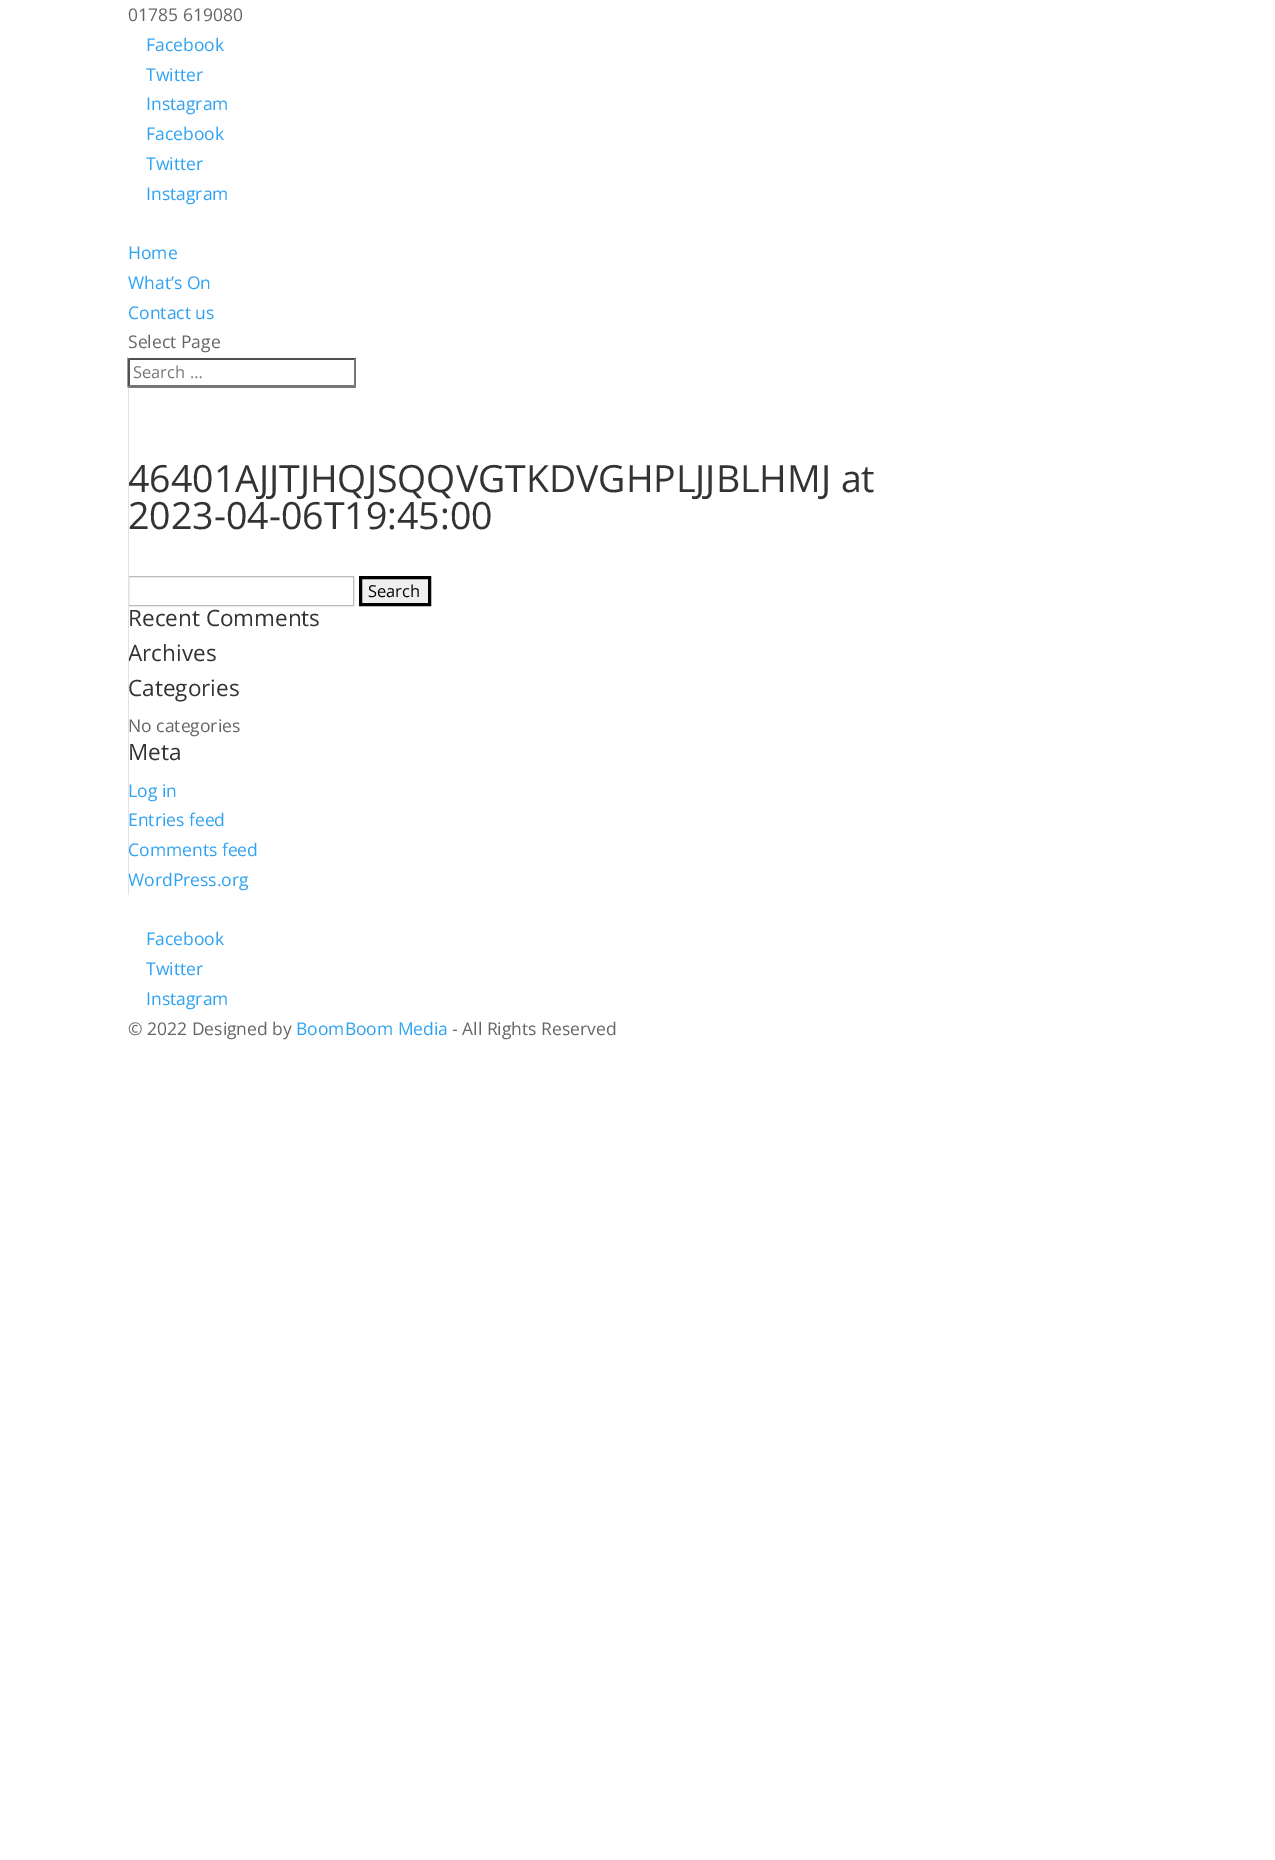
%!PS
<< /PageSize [1275 1860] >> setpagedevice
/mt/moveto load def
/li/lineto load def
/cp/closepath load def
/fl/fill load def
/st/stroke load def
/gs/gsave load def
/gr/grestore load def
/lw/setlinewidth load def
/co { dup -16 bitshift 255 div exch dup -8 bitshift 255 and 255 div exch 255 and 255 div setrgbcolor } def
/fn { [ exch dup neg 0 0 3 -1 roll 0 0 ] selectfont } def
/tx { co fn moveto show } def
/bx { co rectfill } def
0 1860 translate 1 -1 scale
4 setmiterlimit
0 0 1275 1860 16#FFFFFF bx
16#4F4F4F co
128 358 mt 356 358 li 354 360 li 130 360 li cp fl
16#767676 co
356 357.5 mt 356 387.5 li 354 385 li 354 360 li cp fl
356 388 mt 128 388 li 130 385 li 354 385 li cp fl
16#4F4F4F co
127.5 387.5 mt 127.5 357.5 li 130 360 li 130 385 li cp fl
16#BBBBBB co
128.5 576.5 225 29 rectstroke
16#EFEFEF co
360.5 577.5 mt 429.5 577.5 li 429.5 604.5 li 360.5 604.5 li cp gs fl gr
16#000000 co
3 lw
st
(01785 619080) 128 21 /OpenSans-Regular 17.5 16#666666 tx
(Facebook) 146 51 /OpenSans-Regular 17.5 16#2EA3F2 tx
(Twitter) 146 81 /OpenSans-Regular 17.5 16#2EA3F2 tx
(Instagram) 146 110 /OpenSans-Regular 17.5 16#2EA3F2 tx
(Facebook) 146 140 /OpenSans-Regular 17.5 16#2EA3F2 tx
(Twitter) 146 170 /OpenSans-Regular 17.5 16#2EA3F2 tx
(Instagram) 146 200 /OpenSans-Regular 17.5 16#2EA3F2 tx
(Home) 128 259 /OpenSans-Regular 17.5 16#2EA3F2 tx
(What’s On) 128 289 /OpenSans-Regular 17.5 16#2EA3F2 tx
(Contact us) 128 319 /OpenSans-Regular 17.5 16#2EA3F2 tx
(Select Page) 128 348 /OpenSans-Regular 17.5 16#666666 tx
(Search …) 133 378 /OpenSans-Regular 16.5 16#757575 tx
(46401AJJTJHQJSQQVGTKDVGHPLJJBLHMJ at) 128 492 /OpenSans-Regular 37.5 16#333333 tx
(2023-04-06T19:45:00) 128 529 /OpenSans-Regular 37.5 16#333333 tx
(Search) 368 597 /OpenSans-Regular 16.5 16#000000 tx
(Recent Comments) 128 626 /OpenSans-Regular 22.5 16#333333 tx
(Archives) 128 661 /OpenSans-Regular 22.5 16#333333 tx
(Categories) 128 696 /OpenSans-Regular 22.5 16#333333 tx
(No categories) 128 732 /OpenSans-Regular 17.5 16#666666 tx
(Meta) 128 760 /OpenSans-Regular 22.5 16#333333 tx
(Log in) 128 797 /OpenSans-Regular 17.5 16#2EA3F2 tx
(Entries feed) 128 826 /OpenSans-Regular 17.5 16#2EA3F2 tx
(Comments feed) 128 856 /OpenSans-Regular 17.5 16#2EA3F2 tx
(WordPress.org) 128 886 /OpenSans-Regular 17.5 16#2EA3F2 tx
128 388 1 507 16#E2E2E2 bx
(Facebook) 146 945 /OpenSans-Regular 17.5 16#2EA3F2 tx
(Twitter) 146 975 /OpenSans-Regular 17.5 16#2EA3F2 tx
(Instagram) 146 1005 /OpenSans-Regular 17.5 16#2EA3F2 tx
(© 2022 Designed by) 128 1035 /OpenSans-Regular 17.5 16#666666 tx
(BoomBoom Media) 296 1035 /OpenSans-Regular 17.5 16#2EA3F2 tx
(- All Rights Reserved) 452 1035 /OpenSans-Regular 17.5 16#666666 tx
showpage
